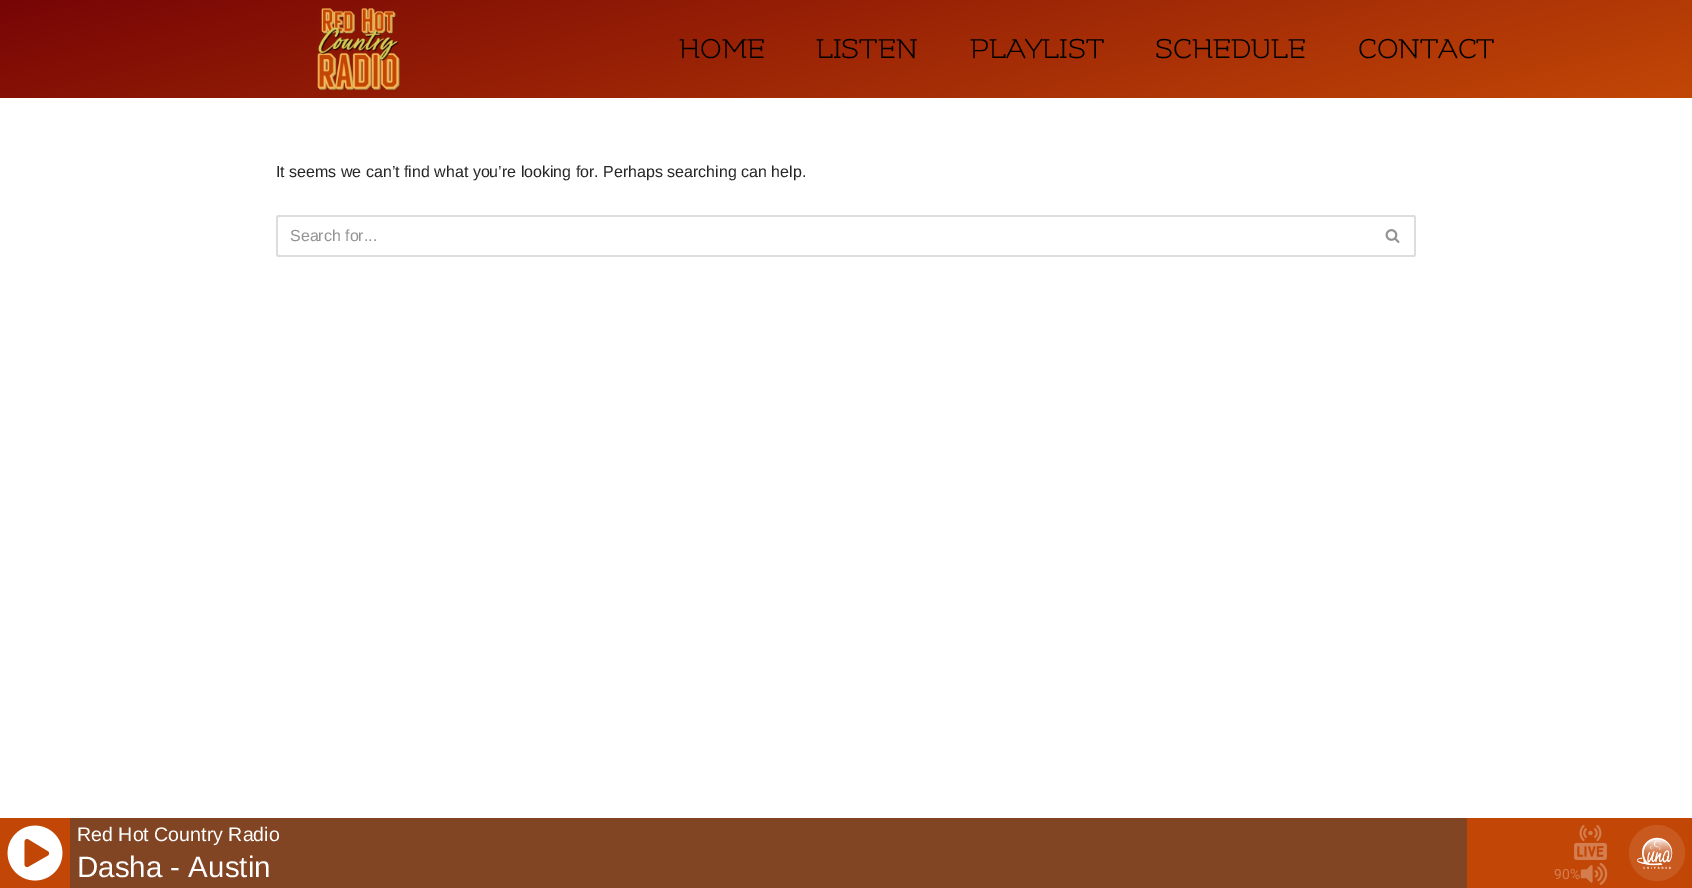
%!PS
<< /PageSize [1692 888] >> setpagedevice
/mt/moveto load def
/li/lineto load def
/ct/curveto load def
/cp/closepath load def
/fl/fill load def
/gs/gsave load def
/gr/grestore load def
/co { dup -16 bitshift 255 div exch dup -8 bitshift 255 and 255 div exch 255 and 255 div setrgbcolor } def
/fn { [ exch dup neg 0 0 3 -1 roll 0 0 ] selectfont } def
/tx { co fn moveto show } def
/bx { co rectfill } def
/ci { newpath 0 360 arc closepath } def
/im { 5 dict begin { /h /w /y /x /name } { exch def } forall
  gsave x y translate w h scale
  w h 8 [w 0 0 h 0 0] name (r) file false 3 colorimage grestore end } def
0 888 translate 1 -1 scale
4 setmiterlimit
0 0 1692 888 16#FFFFFF bx
gs 0 0 mt 1692 0 li 1692 98 li 0 98 li cp clip newpath
<< /ShadingType 2 /ColorSpace /DeviceRGB /Coords [907 294 785 -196] /Extend [true true] /Function << /FunctionType 2 /Domain [0 1] /C0 [.761 .278 .024] /C1 [.467 .02 .02] /N 1 >> >> shfill gr
(media/1.raw) 317 8 83 82 im
16#DDDDDD co
279 215 mt 1371 215 li 1371 257 li 279 257 li 277 257 276 256 276 254 ct 276 218 li 276 216 277 215 279 215 ct cp 279 217 mt 1371 217 li 1371 255 li 279 255 li 278 255 278 255 278 254 ct 278 218 li 278 217 278 217 279 217 ct cp eofill
1371 215 mt 1413 215 li 1415 215 1416 216 1416 218 ct 1416 254 li 1416 256 1415 257 1413 257 ct 1371 257 li cp 1371 217 mt 1413 217 li 1414 217 1414 217 1414 218 ct 1414 254 li 1414 255 1414 255 1413 255 ct 1371 255 li cp eofill
(media/2.raw) 1385 229 15 14 im
0 818 1692 70 16#C24706 bx
(media/3.raw) 7 825 56 56 im
70 818 1397 70 16#824524 bx
(media/4.raw) 1574 825 33 35 im
16#C8591F co
1657 853 28 ci fl
(media/5.raw) 1637 837 36 32 im
(media/6.raw) 1580 863 28 22 im
(HOME) 679 58 /Flamenco-Regular 31 16#000000 tx
(LISTEN) 816 58 /Flamenco-Regular 31 16#000000 tx
(PLAYLIST) 970 58 /Flamenco-Regular 31 16#000000 tx
(SCHEDULE) 1155 58 /Flamenco-Regular 31 16#000000 tx
(CONTACT) 1358 58 /Flamenco-Regular 31 16#000000 tx
(It seems we can’t find what you’re looking for. Perhaps searching can help.) 276 177 /LiberationSans-Regular 16 16#272626 tx
(Search for...) 290 241 /LiberationSans-Regular 16 16#939393 tx
(Red Hot Country Radio) 77 841 /LiberationSans-Regular 19.6 16#FFFFFF tx
(Dasha - Austin) 77 877 /LiberationSans-Regular 29.5 16#FFFFFF tx
(90%) 1554 879 /Roboto-Regular 14 16#D47E51 tx
showpage
